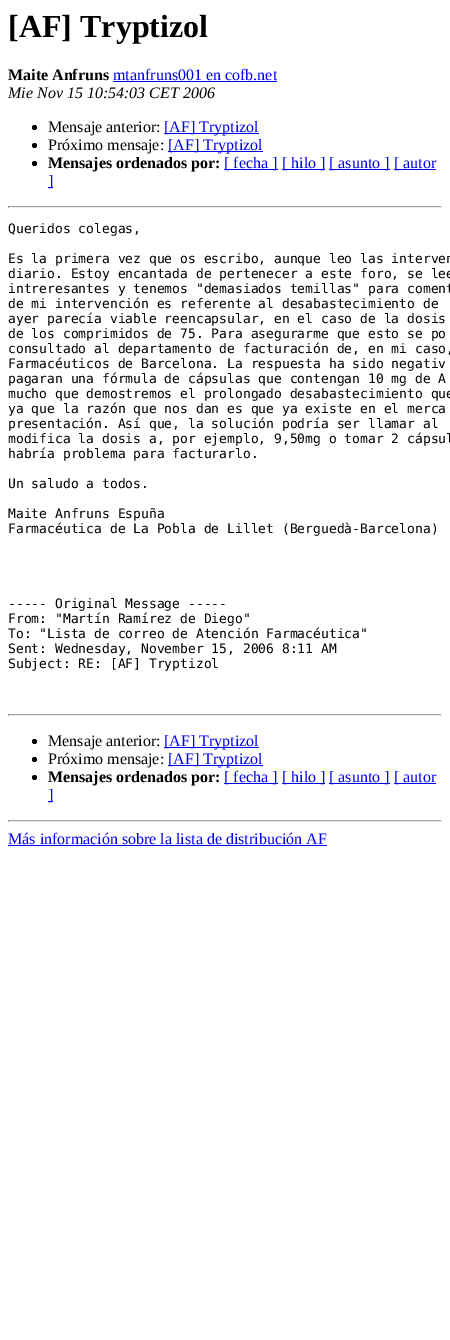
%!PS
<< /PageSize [450 1340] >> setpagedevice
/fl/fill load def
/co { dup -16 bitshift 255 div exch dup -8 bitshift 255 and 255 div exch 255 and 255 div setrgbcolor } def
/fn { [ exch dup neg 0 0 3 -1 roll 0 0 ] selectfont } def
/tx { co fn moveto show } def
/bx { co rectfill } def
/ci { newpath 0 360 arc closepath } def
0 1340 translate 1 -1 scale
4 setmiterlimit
0 0 450 1340 16#FFFFFF bx
113 81 164 1 16#0000EE bx
16#000000 co
34.5 127.5 2.5 ci fl
164 133 95 1 16#0000EE bx
16#000000 co
34.5 145.5 2.5 ci fl
168 151 95 1 16#0000EE bx
16#000000 co
34.5 163.5 2.5 ci fl
224 169 54 1 16#0000EE bx
282 169 43 1 16#0000EE bx
329 169 61 1 16#0000EE bx
394 169 42 1 16#0000EE bx
48 187 5 1 16#0000EE bx
8 206 434 1 16#9F9F9F bx
441 206 1 2 16#EEEEEE bx
8 207 434 1 16#EEEEEE bx
8 206 1 2 16#9F9F9F bx
8 714 434 1 16#9F9F9F bx
441 714 1 2 16#EEEEEE bx
8 715 434 1 16#EEEEEE bx
8 714 1 2 16#9F9F9F bx
16#000000 co
34.5 741.5 2.5 ci fl
164 747 95 1 16#0000EE bx
16#000000 co
34.5 759.5 2.5 ci fl
168 765 95 1 16#0000EE bx
16#000000 co
34.5 777.5 2.5 ci fl
224 783 54 1 16#0000EE bx
282 783 43 1 16#0000EE bx
329 783 61 1 16#0000EE bx
394 783 42 1 16#0000EE bx
48 801 5 1 16#0000EE bx
8 820 434 1 16#9F9F9F bx
441 820 1 2 16#EEEEEE bx
8 821 434 1 16#EEEEEE bx
8 820 1 2 16#9F9F9F bx
8 845 319 1 16#0000EE bx
([AF] Tryptizol) 8 37 /LiberationSerif-Bold 32 16#000000 tx
(Maite Anfruns) 8 80 /LiberationSerif-Bold 16 16#000000 tx
(mtanfruns001 en cofb.net) 113 80 /LiberationSerif-Regular 16 16#0000EE tx
(Mie Nov 15 10:54:03 CET 2006) 8 98 /LiberationSerif-Italic 16 16#000000 tx
(Mensaje anterior:) 48 132 /LiberationSerif-Regular 16 16#000000 tx
([AF] Tryptizol) 164 132 /LiberationSerif-Regular 16 16#0000EE tx
(Próximo mensaje:) 48 150 /LiberationSerif-Regular 16 16#000000 tx
([AF] Tryptizol) 168 150 /LiberationSerif-Regular 16 16#0000EE tx
(Mensajes ordenados por:) 48 168 /LiberationSerif-Bold 16 16#000000 tx
([ fecha ]) 224 168 /LiberationSerif-Regular 16 16#0000EE tx
([ hilo ]) 282 168 /LiberationSerif-Regular 16 16#0000EE tx
([ asunto ]) 329 168 /LiberationSerif-Regular 16 16#0000EE tx
([ autor) 394 168 /LiberationSerif-Regular 16 16#0000EE tx
(]) 48 186 /LiberationSerif-Regular 16 16#0000EE tx
(Queridos colegas,) 8 233 /DejaVuSansMono-Regular 13 16#000000 tx
(Es la primera vez que os escribo, aunque leo las interven) 8 263 /DejaVuSansMono-Regular 13 16#000000 tx
(diario. Estoy encantada de pertenecer a este foro, se lee) 8 278 /DejaVuSansMono-Regular 13 16#000000 tx
(intreresantes y tenemos "demasiados temillas" para coment) 8 293 /DejaVuSansMono-Regular 13 16#000000 tx
(de mi intervención es referente al desabastecimiento de) 8 308 /DejaVuSansMono-Regular 13 16#000000 tx
(ayer parecía viable reencapsular, en el caso de la dosis) 8 323 /DejaVuSansMono-Regular 13 16#000000 tx
(de los comprimidos de 75. Para asegurarme que esto se po) 8 338 /DejaVuSansMono-Regular 13 16#000000 tx
(consultado al departamento de facturación de, en mi caso,) 8 353 /DejaVuSansMono-Regular 13 16#000000 tx
(Farmacéuticos de Barcelona. La respuesta ha sido negativ) 8 368 /DejaVuSansMono-Regular 13 16#000000 tx
(pagaran una fórmula de cápsulas que contengan 10 mg de A) 8 383 /DejaVuSansMono-Regular 13 16#000000 tx
(mucho que demostremos el prolongado desabastecimiento que) 8 398 /DejaVuSansMono-Regular 13 16#000000 tx
(ya que la razón que nos dan es que ya existe en el merca) 8 413 /DejaVuSansMono-Regular 13 16#000000 tx
(presentación. Así que, la solución podría ser llamar al) 8 428 /DejaVuSansMono-Regular 13 16#000000 tx
(modifica la dosis a, por ejemplo, 9,50mg o tomar 2 cápsul) 8 443 /DejaVuSansMono-Regular 13 16#000000 tx
(habría problema para facturarlo.) 8 458 /DejaVuSansMono-Regular 13 16#000000 tx
(Un saludo a todos.) 8 488 /DejaVuSansMono-Regular 13 16#000000 tx
(Maite Anfruns Espuña) 8 518 /DejaVuSansMono-Regular 13 16#000000 tx
(Farmacéutica de La Pobla de Lillet \(Berguedà-Barcelona\)) 8 533 /DejaVuSansMono-Regular 13 16#000000 tx
(----- Original Message -----) 8 608 /DejaVuSansMono-Regular 13 16#000000 tx
(From: "Martín Ramírez de Diego") 8 623 /DejaVuSansMono-Regular 13 16#000000 tx
(To: "Lista de correo de Atención Farmacéutica") 8 638 /DejaVuSansMono-Regular 13 16#000000 tx
(Sent: Wednesday, November 15, 2006 8:11 AM) 8 653 /DejaVuSansMono-Regular 13 16#000000 tx
(Subject: RE: [AF] Tryptizol) 8 668 /DejaVuSansMono-Regular 13 16#000000 tx
(Mensaje anterior:) 48 746 /LiberationSerif-Regular 16 16#000000 tx
([AF] Tryptizol) 164 746 /LiberationSerif-Regular 16 16#0000EE tx
(Próximo mensaje:) 48 764 /LiberationSerif-Regular 16 16#000000 tx
([AF] Tryptizol) 168 764 /LiberationSerif-Regular 16 16#0000EE tx
(Mensajes ordenados por:) 48 782 /LiberationSerif-Bold 16 16#000000 tx
([ fecha ]) 224 782 /LiberationSerif-Regular 16 16#0000EE tx
([ hilo ]) 282 782 /LiberationSerif-Regular 16 16#0000EE tx
([ asunto ]) 329 782 /LiberationSerif-Regular 16 16#0000EE tx
([ autor) 394 782 /LiberationSerif-Regular 16 16#0000EE tx
(]) 48 800 /LiberationSerif-Regular 16 16#0000EE tx
(Más información sobre la lista de distribución AF) 8 844 /LiberationSerif-Regular 16 16#0000EE tx
showpage
